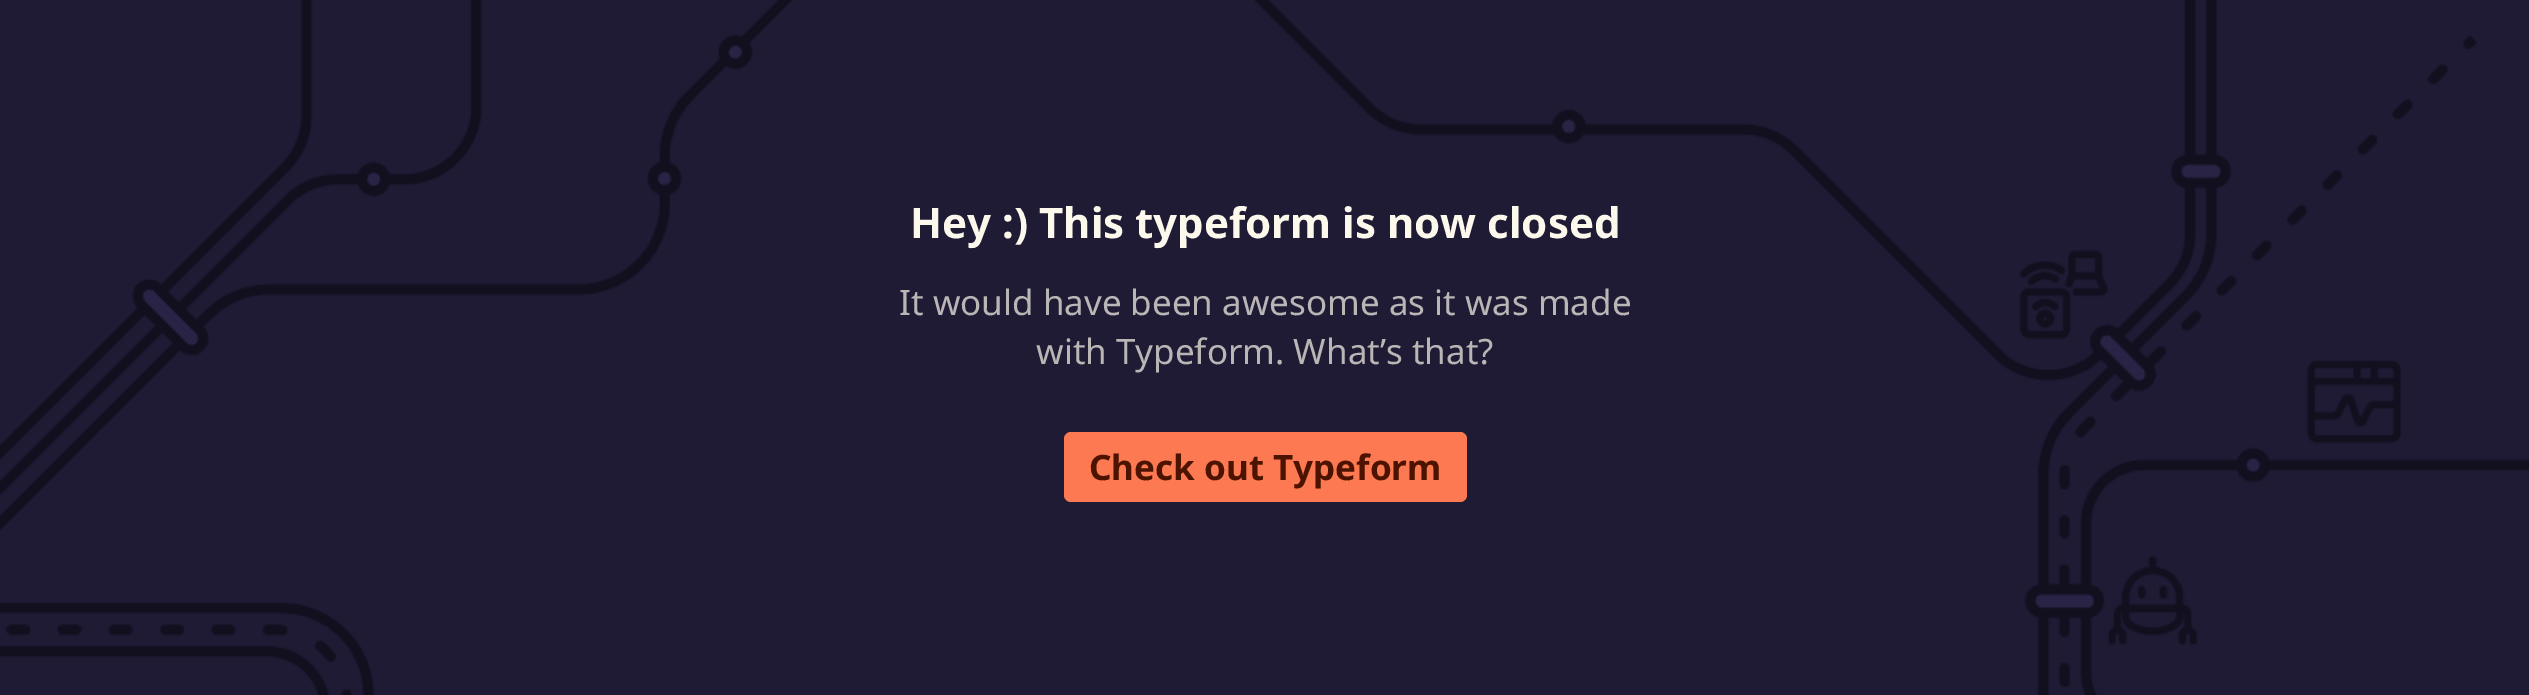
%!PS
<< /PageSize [2529 695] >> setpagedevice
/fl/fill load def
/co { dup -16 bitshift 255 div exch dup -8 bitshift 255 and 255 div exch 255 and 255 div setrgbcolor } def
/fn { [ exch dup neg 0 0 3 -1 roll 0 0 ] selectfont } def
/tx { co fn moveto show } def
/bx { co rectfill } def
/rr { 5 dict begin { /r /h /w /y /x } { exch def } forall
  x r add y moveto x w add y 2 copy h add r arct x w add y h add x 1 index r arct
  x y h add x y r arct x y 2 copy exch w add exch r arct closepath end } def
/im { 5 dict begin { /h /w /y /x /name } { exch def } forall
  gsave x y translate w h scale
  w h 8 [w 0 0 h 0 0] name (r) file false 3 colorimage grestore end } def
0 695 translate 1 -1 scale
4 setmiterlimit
0 0 2529 695 16#FFFFFF bx
(media/1.raw) 0 0 2529 695 im
16#FC7951 co
1064 432 403 70 7 rr fl
(Hey :\) This typeform is now closed) 910 238 /NotoSans-Bold 42 16#FCF8EC tx
(It would have been awesome as it was made) 899 315 /NotoSans-Regular 35 16#BAB6B5 tx
(with Typeform. What’s that?) 1036 364 /NotoSans-Regular 35 16#BAB6B5 tx
(Check out Typeform) 1089 480 /NotoSans-Bold 35 16#4D1301 tx
showpage
